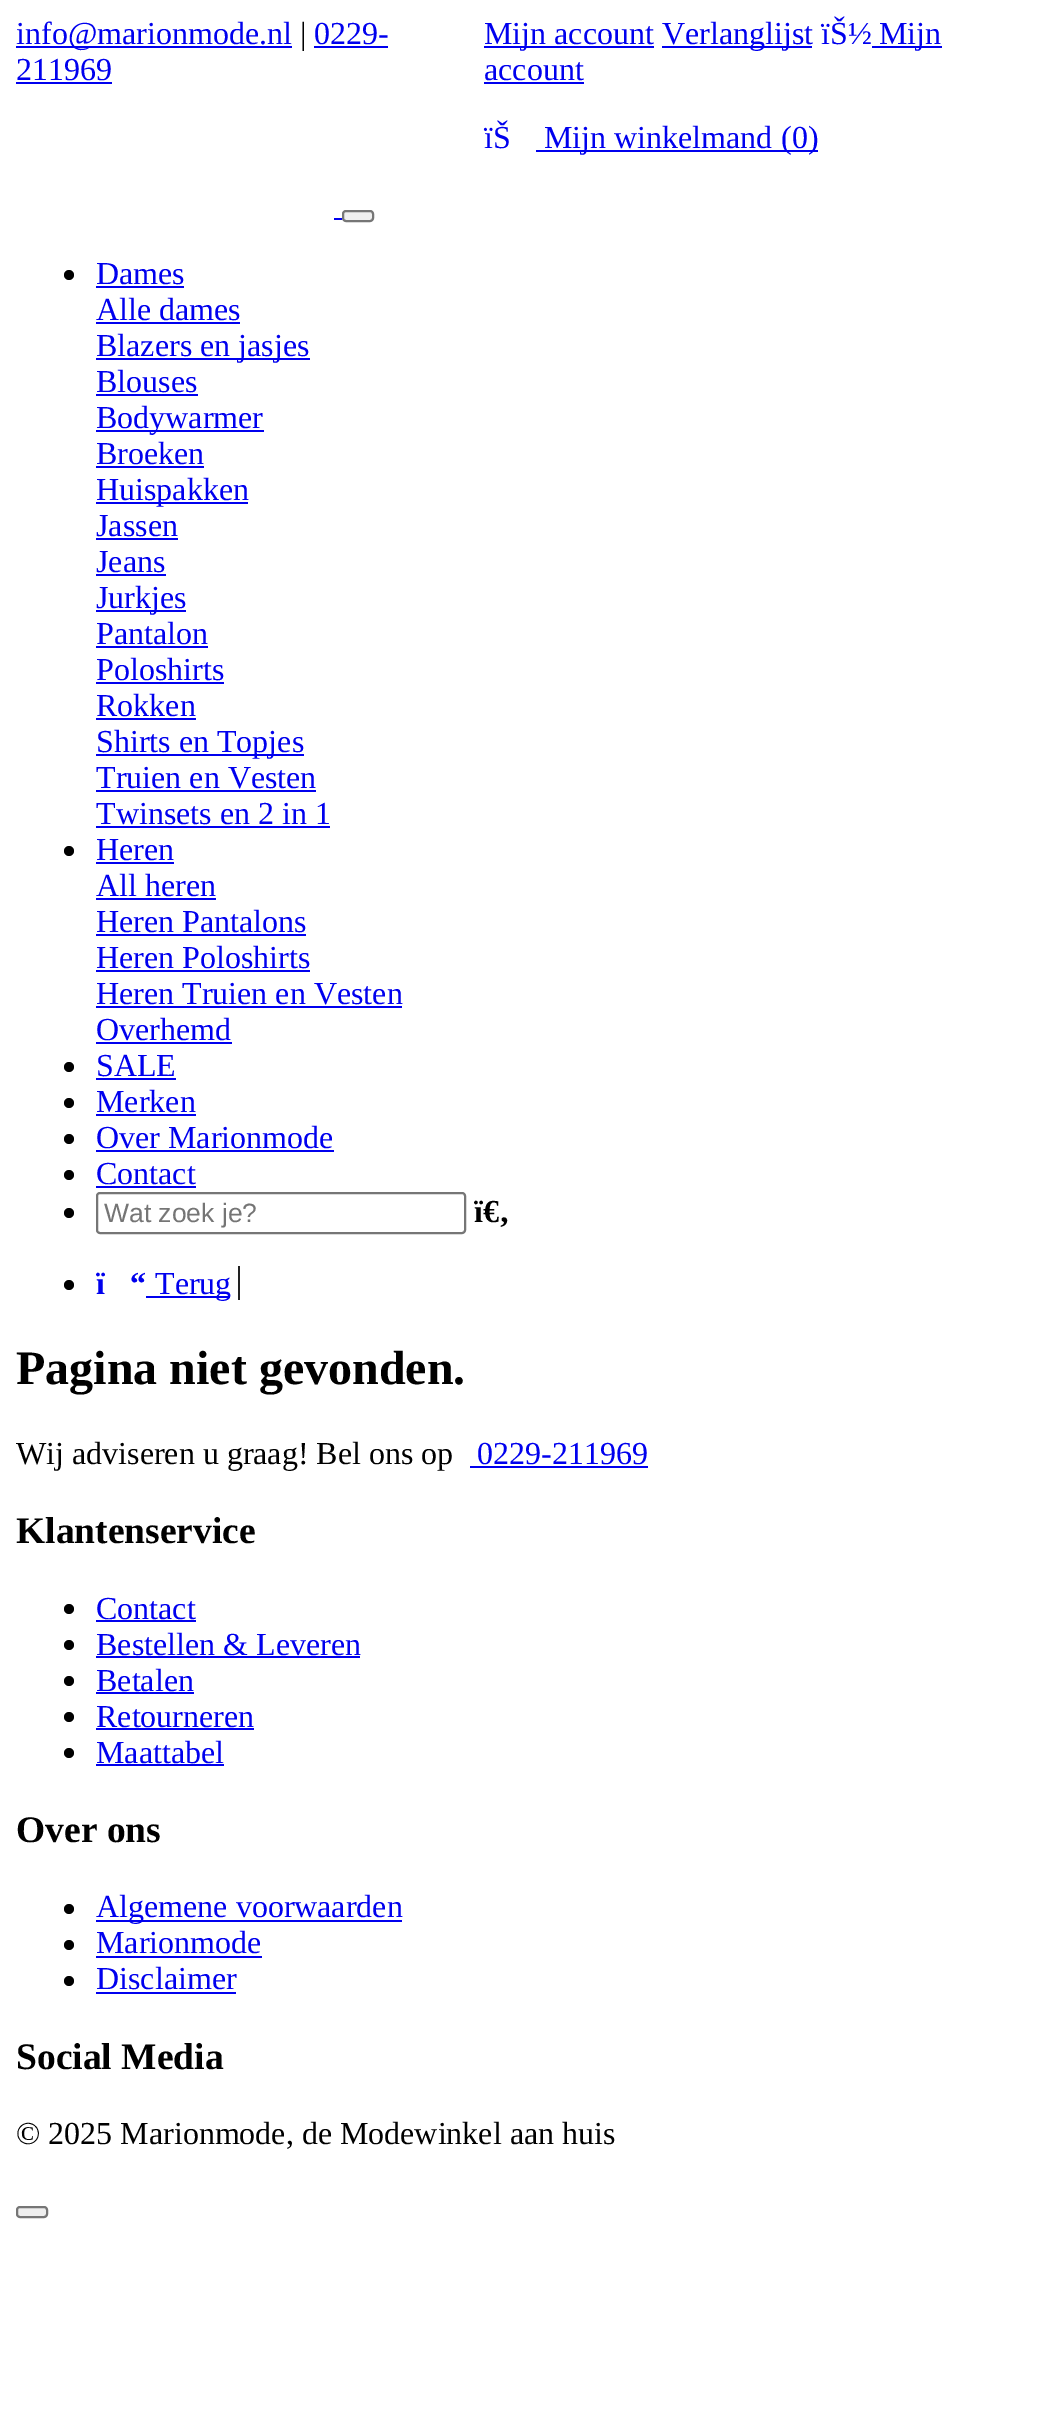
%!PS
<< /PageSize [1064 2414] >> setpagedevice
/fl/fill load def
/st/stroke load def
/gs/gsave load def
/gr/grestore load def
/lw/setlinewidth load def
/co { dup -16 bitshift 255 div exch dup -8 bitshift 255 and 255 div exch 255 and 255 div setrgbcolor } def
/fn { [ exch dup neg 0 0 3 -1 roll 0 0 ] selectfont } def
/tx { co fn moveto show } def
/bx { co rectfill } def
/ci { newpath 0 360 arc closepath } def
/rr { 5 dict begin { /r /h /w /y /x } { exch def } forall
  x r add y moveto x w add y 2 copy h add r arct x w add y h add x 1 index r arct
  x y h add x y r arct x y 2 copy exch w add exch r arct closepath end } def
0 2414 translate 1 -1 scale
4 setmiterlimit
0 0 1064 2414 16#FFFFFF bx
16 46 276 2 16#0000EE bx
314 46 74 2 16#0000EE bx
16 82 96 2 16#0000EE bx
484 46 170 2 16#0000EE bx
662 46 150 2 16#0000EE bx
872 46 70 2 16#0000EE bx
484 82 100 2 16#0000EE bx
536 150 236 2 16#0000EE bx
772 150 46 2 16#0000EE bx
334 218 8 2 16#0000EE bx
16#EFEFEF co
343 211 30 10 3 rr gs fl gr
16#767676 co
2 lw
st
16#000000 co
69 275 5 ci fl
96 286 88 2 16#0000EE bx
96 322 144 2 16#0000EE bx
96 358 214 2 16#0000EE bx
96 394 102 2 16#0000EE bx
96 430 168 2 16#0000EE bx
96 466 108 2 16#0000EE bx
96 502 152 2 16#0000EE bx
96 538 82 2 16#0000EE bx
96 574 70 2 16#0000EE bx
96 610 90 2 16#0000EE bx
96 646 112 2 16#0000EE bx
96 682 128 2 16#0000EE bx
96 718 100 2 16#0000EE bx
96 754 208 2 16#0000EE bx
96 790 220 2 16#0000EE bx
96 826 234 2 16#0000EE bx
16#000000 co
69 851 5 ci fl
96 862 78 2 16#0000EE bx
96 898 120 2 16#0000EE bx
96 934 210 2 16#0000EE bx
96 970 214 2 16#0000EE bx
96 1006 306 2 16#0000EE bx
96 1042 136 2 16#0000EE bx
16#000000 co
69 1067 5 ci fl
96 1078 80 2 16#0000EE bx
16#000000 co
69 1103 5 ci fl
96 1114 100 2 16#0000EE bx
16#000000 co
69 1139 5 ci fl
96 1150 238 2 16#0000EE bx
16#000000 co
69 1175 5 ci fl
96 1186 100 2 16#0000EE bx
16#000000 co
69 1213 5 ci fl
16#767676 co
97 1193 368 40 3 rr st
16#000000 co
69 1285 5 ci fl
238 1266 2 34 16#222222 bx
146 1296 84 2 16#0000EE bx
470 1466 178 2 16#0000EE bx
16#000000 co
69 1609 5 ci fl
96 1620 100 2 16#0000EE bx
16#000000 co
69 1645 5 ci fl
96 1656 264 2 16#0000EE bx
16#000000 co
69 1681 5 ci fl
96 1692 98 2 16#0000EE bx
16#000000 co
69 1717 5 ci fl
96 1728 158 2 16#0000EE bx
16#000000 co
69 1753 5 ci fl
96 1764 128 2 16#0000EE bx
16#000000 co
69 1909 5 ci fl
96 1920 306 2 16#0000EE bx
16#000000 co
69 1945 5 ci fl
96 1956 166 2 16#0000EE bx
16#000000 co
69 1981 5 ci fl
96 1992 140 2 16#0000EE bx
16#EFEFEF co
17 2207 30 10 3 rr gs fl gr
16#767676 co
st
(info@marionmode.nl) 16 44 /LiberationSerif-Regular 32 16#0000EE tx
(|) 300 44 /LiberationSerif-Regular 32 16#000000 tx
(0229-) 314 44 /LiberationSerif-Regular 32 16#0000EE tx
(211969) 16 80 /LiberationSerif-Regular 32 16#0000EE tx
(Mijn account) 484 44 /LiberationSerif-Regular 32 16#0000EE tx
(Verlanglijst ïŠ½) 662 44 /LiberationSerif-Regular 32 16#0000EE tx
(Mijn) 879 44 /LiberationSerif-Regular 32 16#0000EE tx
(account) 484 80 /LiberationSerif-Regular 32 16#0000EE tx
(ïŠ) 484 148 /LiberationSerif-Regular 32 16#0000EE tx
(Mijn winkelmand) 544 148 /LiberationSerif-Regular 32 16#0000EE tx
(\(0\)) 781 148 /LiberationSerif-Regular 32 16#0000EE tx
(Dames) 96 284 /LiberationSerif-Regular 32 16#0000EE tx
(Alle dames) 96 320 /LiberationSerif-Regular 32 16#0000EE tx
(Blazers en jasjes) 96 356 /LiberationSerif-Regular 32 16#0000EE tx
(Blouses) 96 392 /LiberationSerif-Regular 32 16#0000EE tx
(Bodywarmer) 96 428 /LiberationSerif-Regular 32 16#0000EE tx
(Broeken) 96 464 /LiberationSerif-Regular 32 16#0000EE tx
(Huispakken) 96 500 /LiberationSerif-Regular 32 16#0000EE tx
(Jassen) 96 536 /LiberationSerif-Regular 32 16#0000EE tx
(Jeans) 96 572 /LiberationSerif-Regular 32 16#0000EE tx
(Jurkjes) 96 608 /LiberationSerif-Regular 32 16#0000EE tx
(Pantalon) 96 644 /LiberationSerif-Regular 32 16#0000EE tx
(Poloshirts) 96 680 /LiberationSerif-Regular 32 16#0000EE tx
(Rokken) 96 716 /LiberationSerif-Regular 32 16#0000EE tx
(Shirts en Topjes) 96 752 /LiberationSerif-Regular 32 16#0000EE tx
(Truien en Vesten) 96 788 /LiberationSerif-Regular 32 16#0000EE tx
(Twinsets en 2 in 1) 96 824 /LiberationSerif-Regular 32 16#0000EE tx
(Heren) 96 860 /LiberationSerif-Regular 32 16#0000EE tx
(All heren) 96 896 /LiberationSerif-Regular 32 16#0000EE tx
(Heren Pantalons) 96 932 /LiberationSerif-Regular 32 16#0000EE tx
(Heren Poloshirts) 96 968 /LiberationSerif-Regular 32 16#0000EE tx
(Heren Truien en Vesten) 96 1004 /LiberationSerif-Regular 32 16#0000EE tx
(Overhemd) 96 1040 /LiberationSerif-Regular 32 16#0000EE tx
(SALE) 96 1076 /LiberationSerif-Regular 32 16#0000EE tx
(Merken) 96 1112 /LiberationSerif-Regular 32 16#0000EE tx
(Over Marionmode) 96 1148 /LiberationSerif-Regular 32 16#0000EE tx
(Contact) 96 1184 /LiberationSerif-Regular 32 16#0000EE tx
(Wat zoek je?) 104 1222 /LiberationSans-Regular 26.5 16#757575 tx
(ï€‚) 474 1222 /LiberationSerif-Bold 32 16#000000 tx
(ï) 96 1294 /LiberationSerif-Bold 32 16#0000EE tx
(“) 130 1294 /LiberationSerif-Bold 32 16#0000EE tx
(Terug) 155 1294 /LiberationSerif-Regular 32 16#0000EE tx
(Pagina niet gevonden.) 16 1384 /LiberationSerif-Bold 48 16#000000 tx
(Wij adviseren u graag! Bel ons op) 16 1464 /LiberationSerif-Regular 32 16#000000 tx
(0229-211969) 477 1464 /LiberationSerif-Regular 32 16#0000EE tx
(Klantenservice) 16 1543 /LiberationSerif-Bold 37.5 16#000000 tx
(Contact) 96 1619 /LiberationSerif-Regular 32 16#0000EE tx
(Bestellen & Leveren) 96 1655 /LiberationSerif-Regular 32 16#0000EE tx
(Betalen) 96 1691 /LiberationSerif-Regular 32 16#0000EE tx
(Retourneren) 96 1727 /LiberationSerif-Regular 32 16#0000EE tx
(Maattabel) 96 1763 /LiberationSerif-Regular 32 16#0000EE tx
(Over ons) 16 1842 /LiberationSerif-Bold 37.5 16#000000 tx
(Algemene voorwaarden) 96 1917 /LiberationSerif-Regular 32 16#0000EE tx
(Marionmode) 96 1953 /LiberationSerif-Regular 32 16#0000EE tx
(Disclaimer) 96 1989 /LiberationSerif-Regular 32 16#0000EE tx
(Social Media) 16 2069 /LiberationSerif-Bold 37.5 16#000000 tx
(© 2025 Marionmode, de Modewinkel aan huis) 16 2144 /LiberationSerif-Regular 32 16#000000 tx
showpage
